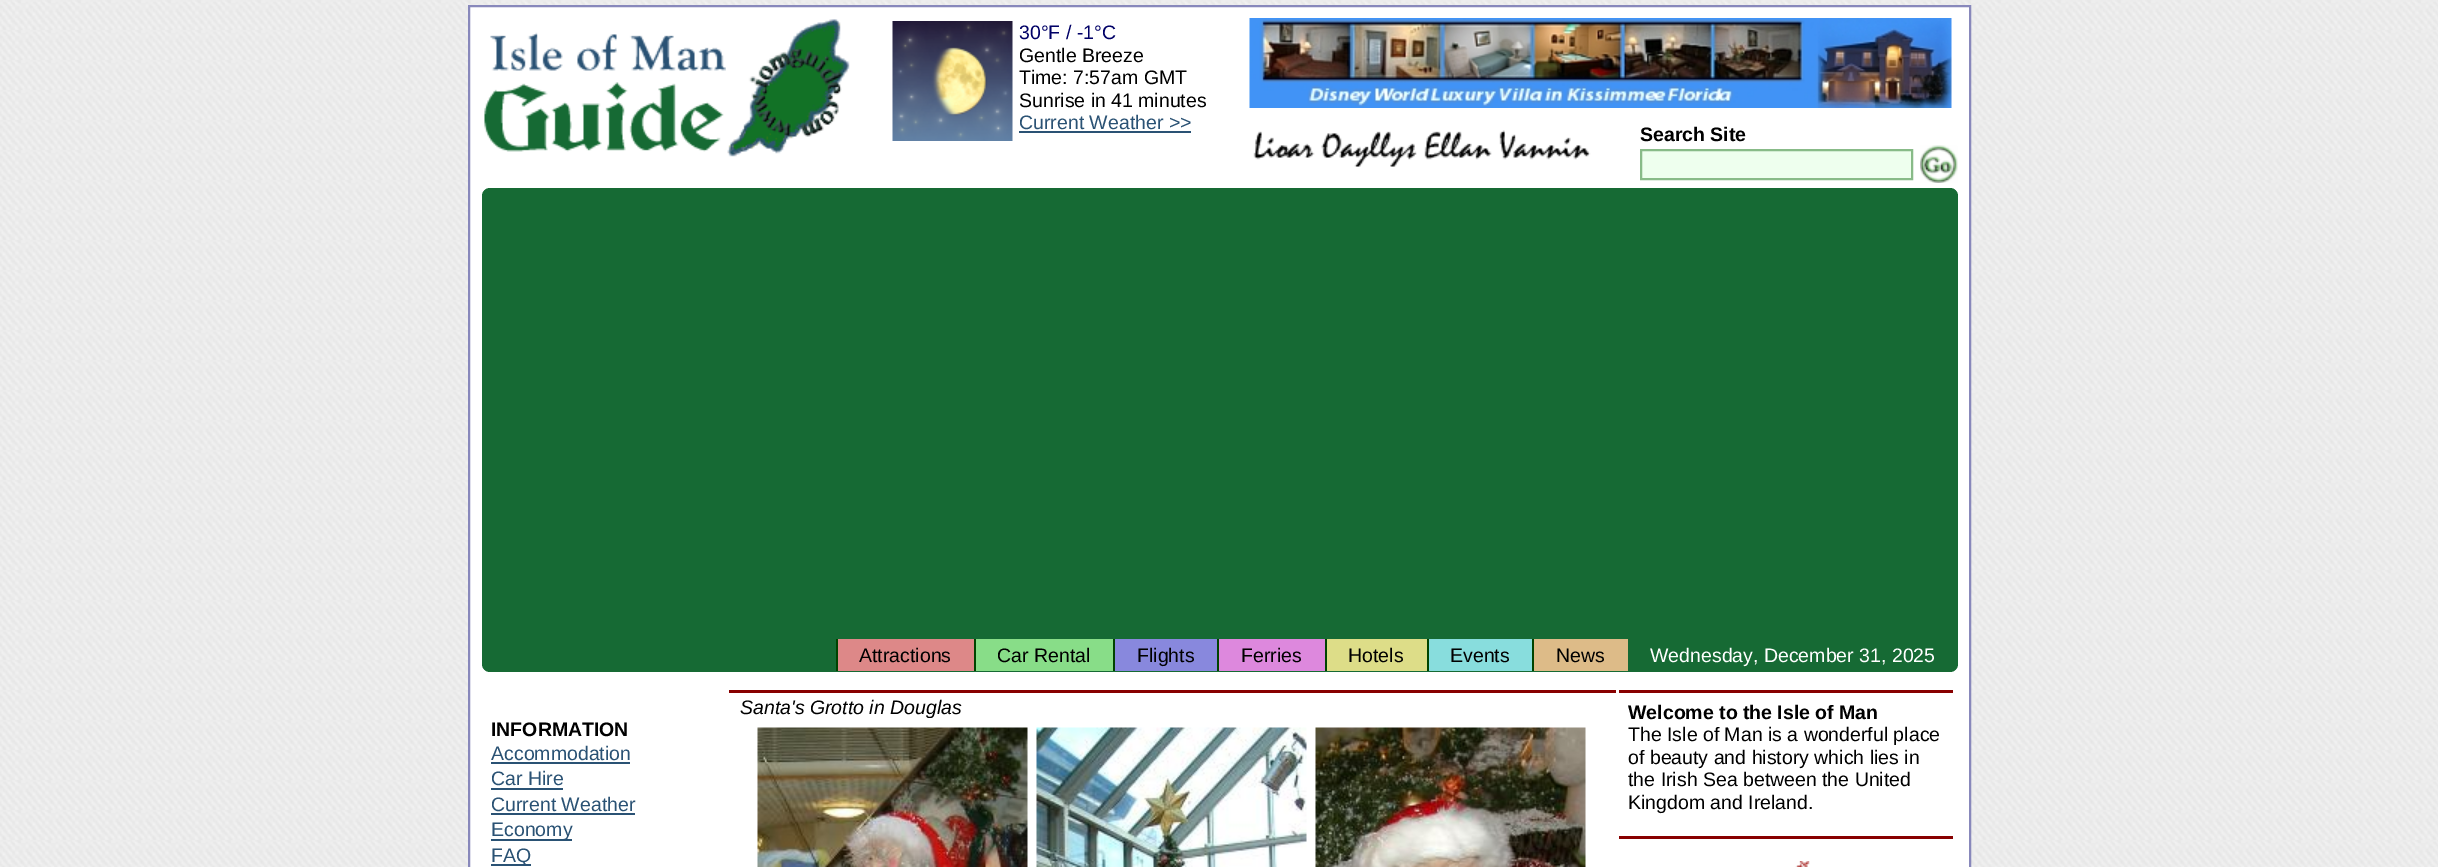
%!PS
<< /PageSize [2438 867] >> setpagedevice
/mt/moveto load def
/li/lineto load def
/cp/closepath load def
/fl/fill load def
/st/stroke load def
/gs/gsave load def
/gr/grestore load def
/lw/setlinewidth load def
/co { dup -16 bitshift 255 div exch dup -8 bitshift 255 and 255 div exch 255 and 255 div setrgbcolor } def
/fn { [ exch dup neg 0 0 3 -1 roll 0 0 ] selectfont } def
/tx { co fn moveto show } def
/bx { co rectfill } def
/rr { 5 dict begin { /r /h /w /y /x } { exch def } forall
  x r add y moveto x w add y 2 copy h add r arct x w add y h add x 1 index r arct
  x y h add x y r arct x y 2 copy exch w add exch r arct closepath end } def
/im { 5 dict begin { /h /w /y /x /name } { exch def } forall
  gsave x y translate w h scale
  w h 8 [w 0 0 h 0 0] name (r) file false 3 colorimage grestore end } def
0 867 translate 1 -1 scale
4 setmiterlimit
0 0 2438 867 16#FFFFFF bx
(media/1.raw) 0 0 2438 867 im
469 6 mt 1970 6 li 1970 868 li 469 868 li cp gs fl gr
16#8888BB co
2 lw
st
(media/2.raw) 484 32 242 120 im
(media/3.raw) 727 19 123 138 im
(media/4.raw) 892 21 121 120 im
1019 131 172 2 16#2A5274 bx
(media/5.raw) 1249 18 703 90 im
(media/6.raw) 1253 130 338 37 im
16#EEFFEE co
1641 150 mt 1912 150 li 1912 179 li 1641 179 li cp gs fl gr
16#88BB88 co
st
(media/7.raw) 1920 145 38 38 im
16#166A34 co
482 188 1476 484 8 rr fl
838 639 136 32 16#DD8888 bx
836 639 2 32 16#004400 bx
976 639 137 32 16#88DD88 bx
974 639 2 32 16#004400 bx
1115 639 102 32 16#8888DD bx
1113 639 2 32 16#004400 bx
1219 639 106 32 16#DD88DD bx
1217 639 2 32 16#004400 bx
1327 639 100 32 16#DDDD88 bx
1325 639 2 32 16#004400 bx
1429 639 103 32 16#88DDDD bx
1427 639 2 32 16#004400 bx
1534 639 94 32 16#DDBB88 bx
1532 639 2 32 16#004400 bx
491 762 139 2 16#2A5274 bx
491 788 72 2 16#2A5274 bx
491 813 144 2 16#2A5274 bx
491 839 81 2 16#2A5274 bx
491 864 40 2 16#2A5274 bx
729 690 887 3 16#880000 bx
(media/8.raw) 757 727 271 140 im
(media/9.raw) 1036 727 271 140 im
(media/10.raw) 1315 727 271 140 im
1619 690 334 3 16#880000 bx
1619 836 334 3 16#880000 bx
(media/11.raw) 1795 861 15 6 im
(30°F / -1°C) 1019 39 /LiberationSans-Regular 19.5 16#000066 tx
(Gentle Breeze) 1019 62 /LiberationSans-Regular 19.5 16#000000 tx
(Time: 7:57am GMT) 1019 84 /LiberationSans-Regular 19.5 16#000000 tx
(Sunrise in 41 minutes) 1019 107 /LiberationSans-Regular 19.5 16#000000 tx
(Current Weather >>) 1019 129 /LiberationSans-Regular 19.5 16#2A5274 tx
(Search Site) 1640 141 /LiberationSans-Bold 19.5 16#000000 tx
(Attractions) 859 662 /LiberationSans-Regular 19.5 16#000000 tx
(Car Rental) 997 662 /LiberationSans-Regular 19.5 16#000000 tx
(Flights) 1137 662 /LiberationSans-Regular 19.5 16#000000 tx
(Ferries) 1241 662 /LiberationSans-Regular 19.5 16#000000 tx
(Hotels) 1348 662 /LiberationSans-Regular 19.5 16#000000 tx
(Events) 1450 662 /LiberationSans-Regular 19.5 16#000000 tx
(News) 1556 662 /LiberationSans-Regular 19.5 16#000000 tx
(Wednesday, December 31, 2025) 1650 662 /LiberationSans-Regular 19.5 16#FFFFFF tx
(INFORMATION) 491 736 /LiberationSans-Bold 19.5 16#000000 tx
(Accommodation) 491 760 /LiberationSans-Regular 19.5 16#2A5274 tx
(Car Hire) 491 785 /LiberationSans-Regular 19.5 16#2A5274 tx
(Current Weather) 491 811 /LiberationSans-Regular 19.5 16#2A5274 tx
(Economy) 491 836 /LiberationSans-Regular 19.5 16#2A5274 tx
(FAQ) 491 862 /LiberationSans-Regular 19.5 16#2A5274 tx
(Santa's Grotto in Douglas) 740 714 /LiberationSans-Italic 19.5 16#000000 tx
(Welcome to the Isle of Man) 1628 719 /LiberationSans-Bold 19.5 16#000000 tx
(The Isle of Man is a wonderful place) 1628 741 /LiberationSans-Regular 19.5 16#000000 tx
(of beauty and history which lies in) 1628 764 /LiberationSans-Regular 19.5 16#000000 tx
(the Irish Sea between the United) 1628 786 /LiberationSans-Regular 19.5 16#000000 tx
(Kingdom and Ireland.) 1628 809 /LiberationSans-Regular 19.5 16#000000 tx
showpage
